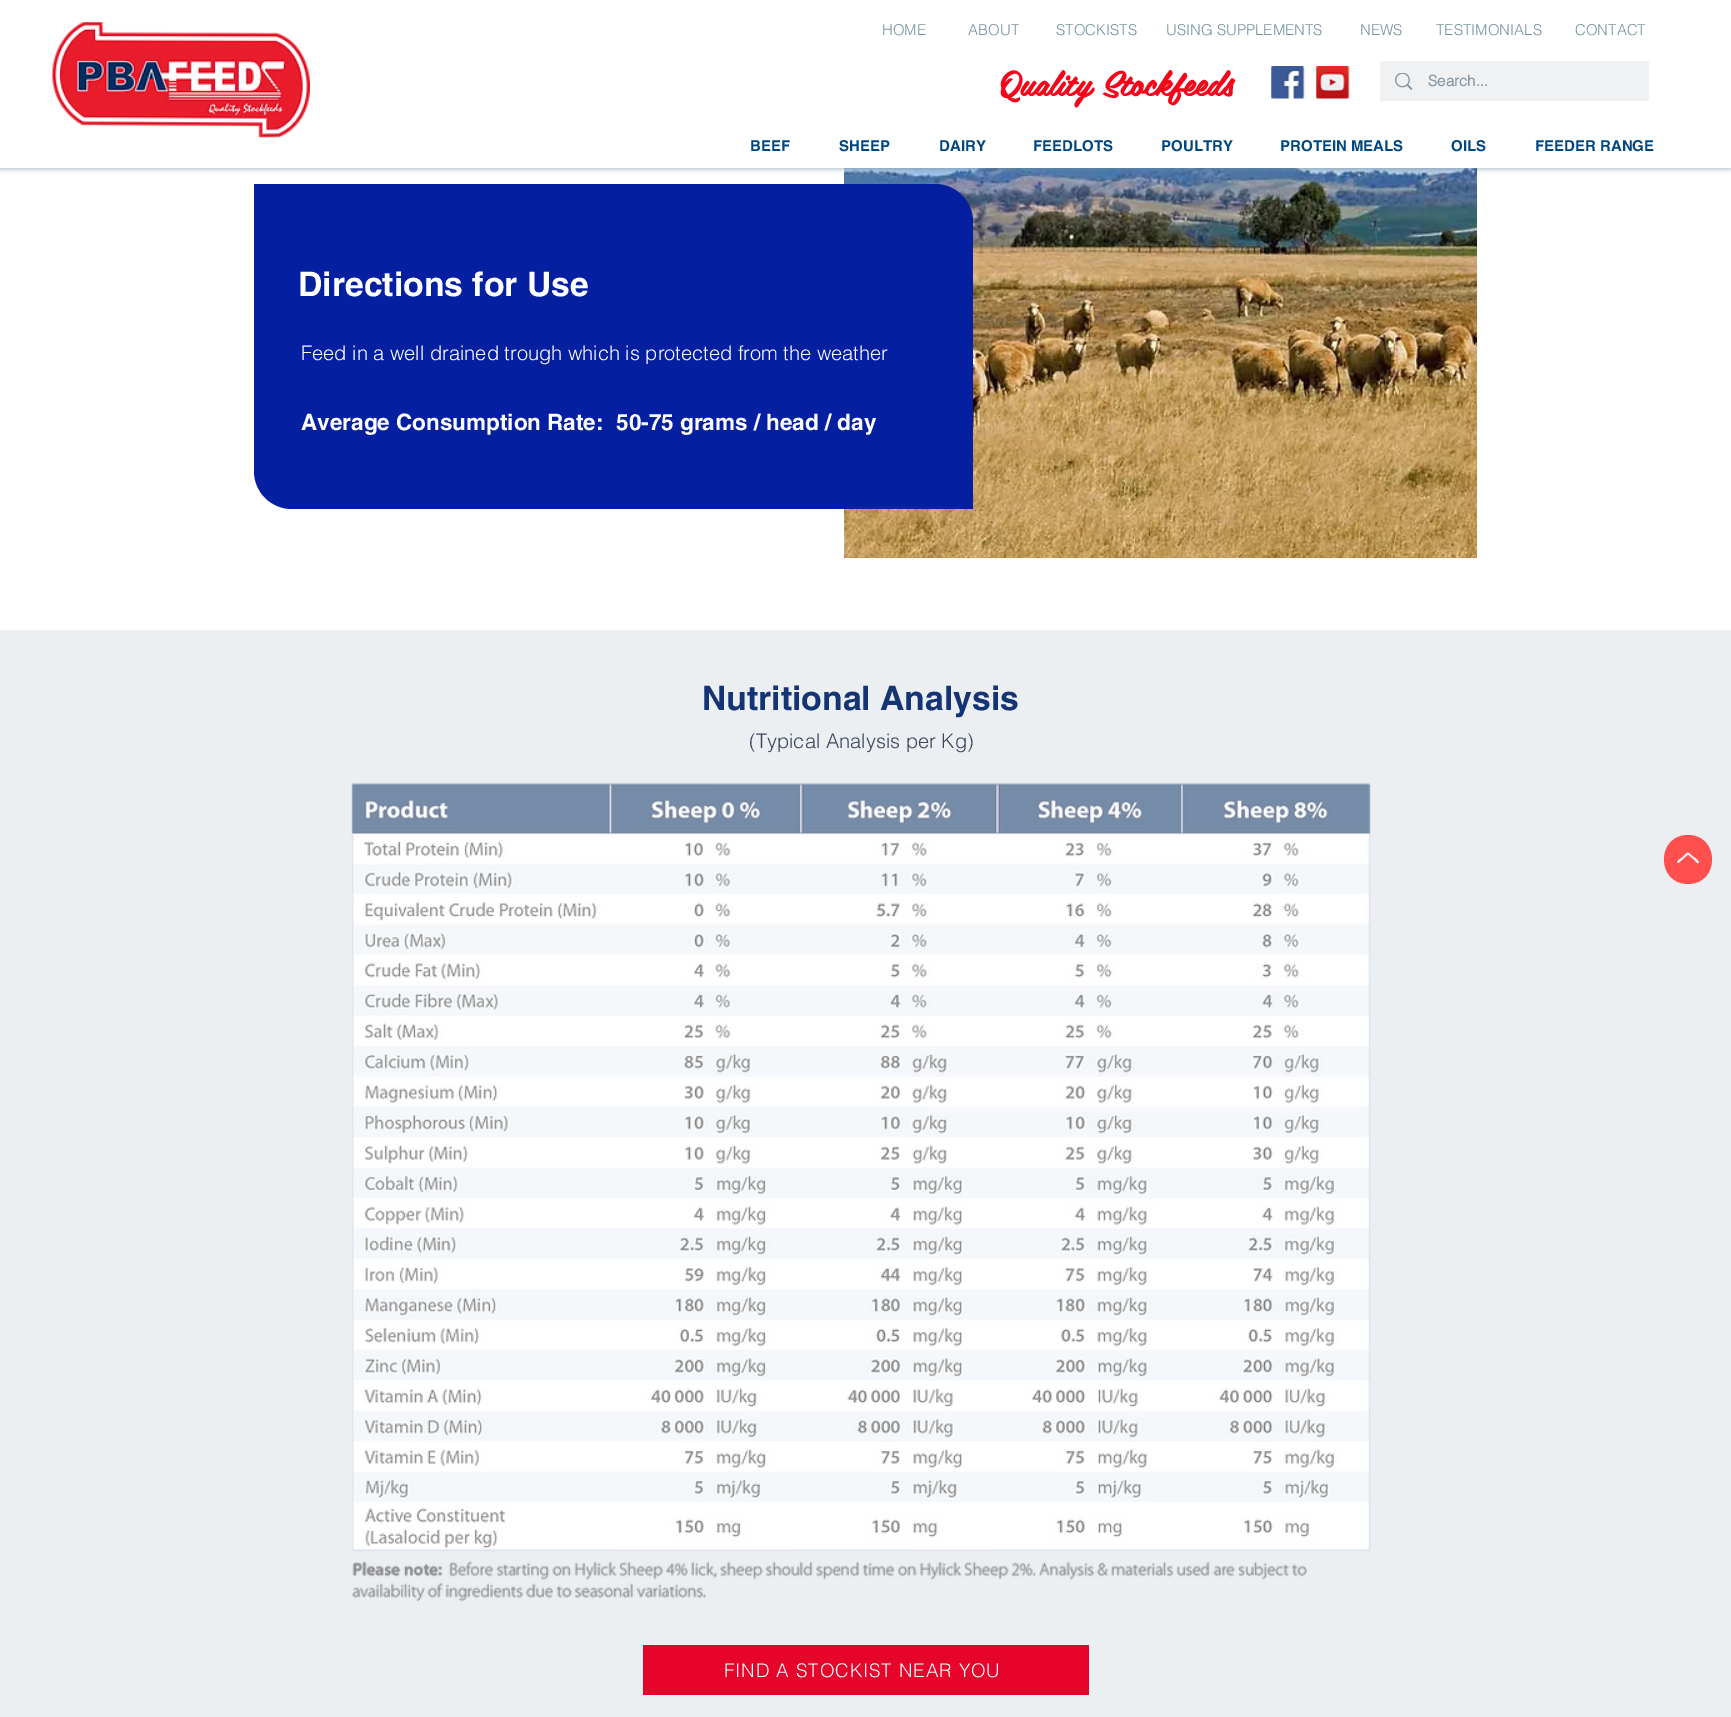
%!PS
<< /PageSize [1731 1717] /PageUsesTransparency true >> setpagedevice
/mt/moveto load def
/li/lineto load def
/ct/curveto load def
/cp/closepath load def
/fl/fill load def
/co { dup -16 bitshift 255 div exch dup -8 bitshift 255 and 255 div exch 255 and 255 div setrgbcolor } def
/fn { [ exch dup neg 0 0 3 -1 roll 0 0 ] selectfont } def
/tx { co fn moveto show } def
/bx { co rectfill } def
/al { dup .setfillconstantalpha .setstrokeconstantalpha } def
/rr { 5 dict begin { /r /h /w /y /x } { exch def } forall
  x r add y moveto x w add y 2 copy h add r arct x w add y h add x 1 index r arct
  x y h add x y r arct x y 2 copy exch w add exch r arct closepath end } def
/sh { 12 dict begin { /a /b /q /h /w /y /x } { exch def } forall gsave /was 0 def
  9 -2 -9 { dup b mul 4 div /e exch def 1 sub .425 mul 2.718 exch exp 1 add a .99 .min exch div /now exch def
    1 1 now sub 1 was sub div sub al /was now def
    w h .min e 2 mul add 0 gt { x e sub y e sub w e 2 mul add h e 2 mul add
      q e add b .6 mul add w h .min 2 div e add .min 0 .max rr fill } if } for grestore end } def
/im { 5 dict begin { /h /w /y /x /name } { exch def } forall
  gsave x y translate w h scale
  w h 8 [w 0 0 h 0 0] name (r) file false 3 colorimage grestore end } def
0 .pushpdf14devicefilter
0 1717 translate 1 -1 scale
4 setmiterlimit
0 0 1731 1717 16#FFFFFF bx
(media/5.raw) 844 168 634 391 im
16#72919E co
0 1 1731 168 0 2.5 .6 sh
0 0 1731 168 16#FFFFFF bx
(media/1.raw) 52 22 258 116 im
(media/2.raw) 1271 66 34 33 im
(media/3.raw) 1316 66 34 33 im
1380 61 269 40 16#F0F1F2 bx
(media/4.raw) 1395 73 18 17 im
16#051FA1 co
254 184 mt 935 184 li 956 184 973 201 973 222 ct 973 509 li 292 509 li 271 509 254 492 254 471 ct cp fl
0 630 1731 1087 16#EBEFF2 bx
(media/6.raw) 351 783 1020 819 im
643 1645 446 50 16#E6042A bx
16#FF4F4F co
1688 835 mt 1656 835 1656 884 1688 884 ct 1720 884 1720 835 1688 835 ct cp 1699 863 mt 1697 865 1695 861 1694 860 ct 1688 855 li 1679 863 li 1678 863 li 1675 862 1680 858 1681 858 ct 1689 851 1686 850 1694 857 ct 1695 857 1700 861 1699 863 ct cp fl
(HOME) 882 35 /helvetica-Light 15 16#72919E tx
(ABOUT) 968 35 /helvetica-Light 15 16#72919E tx
(STOCKISTS) 1056 35 /helvetica-Light 15 16#72919E tx
(USING SUPPLEMENTS) 1166 35 /helvetica-Light 15 16#72919E tx
(NEWS) 1360 35 /helvetica-Light 15 16#72919E tx
(TESTIMONIALS) 1436 35 /helvetica-Light 15 16#72919E tx
(CONTACT) 1575 35 /helvetica-Light 15 16#72919E tx
(Quality Stockfeeds) 1000 96 /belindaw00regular-Bold 33.75 16#F60419 tx
(Search...) 1428 86 /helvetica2-Bold 15 16#8495A3 tx
(BEEF) 750 151 /helvetica-Bold 15 16#004680 tx
(SHEEP) 839 151 /helvetica-Bold 15 16#004680 tx
(DAIRY) 939 151 /helvetica-Bold 15 16#004680 tx
(FEEDLOTS) 1033 151 /helvetica-Bold 15 16#004680 tx
(POULTRY) 1161 151 /helvetica-Bold 15 16#004680 tx
(PROTEIN MEALS) 1280 151 /helvetica-Bold 15 16#004680 tx
(OILS) 1451 151 /helvetica-Bold 15 16#004680 tx
(FEEDER RANGE) 1535 151 /helvetica-Bold 15 16#004680 tx
(Directions for Use) 298 296 /helvetica-Bold 33.75 16#FFFFFF tx
(Feed in a well drained trough which is protected from the weather) 301 360 /helvetica-Light 20 16#FFFFFF tx
(Average Consumption Rate:  50-75 grams / head / day) 301 430 /helvetica-Bold 22.5 16#FFFFFF tx
(Nutritional Analysis) 702 710 /helvetica-Bold 33.75 16#143473 tx
(\(Typical Analysis per Kg\)) 749 748 /helvetica-Light 20 16#3C455C tx
/helvetica-Light 18.75 fn
16#FFFFFF co
724 1677 mt .9 0 (FIND A STOCKIST NEAR YOU) ashow
.poppdf14devicefilter showpage
